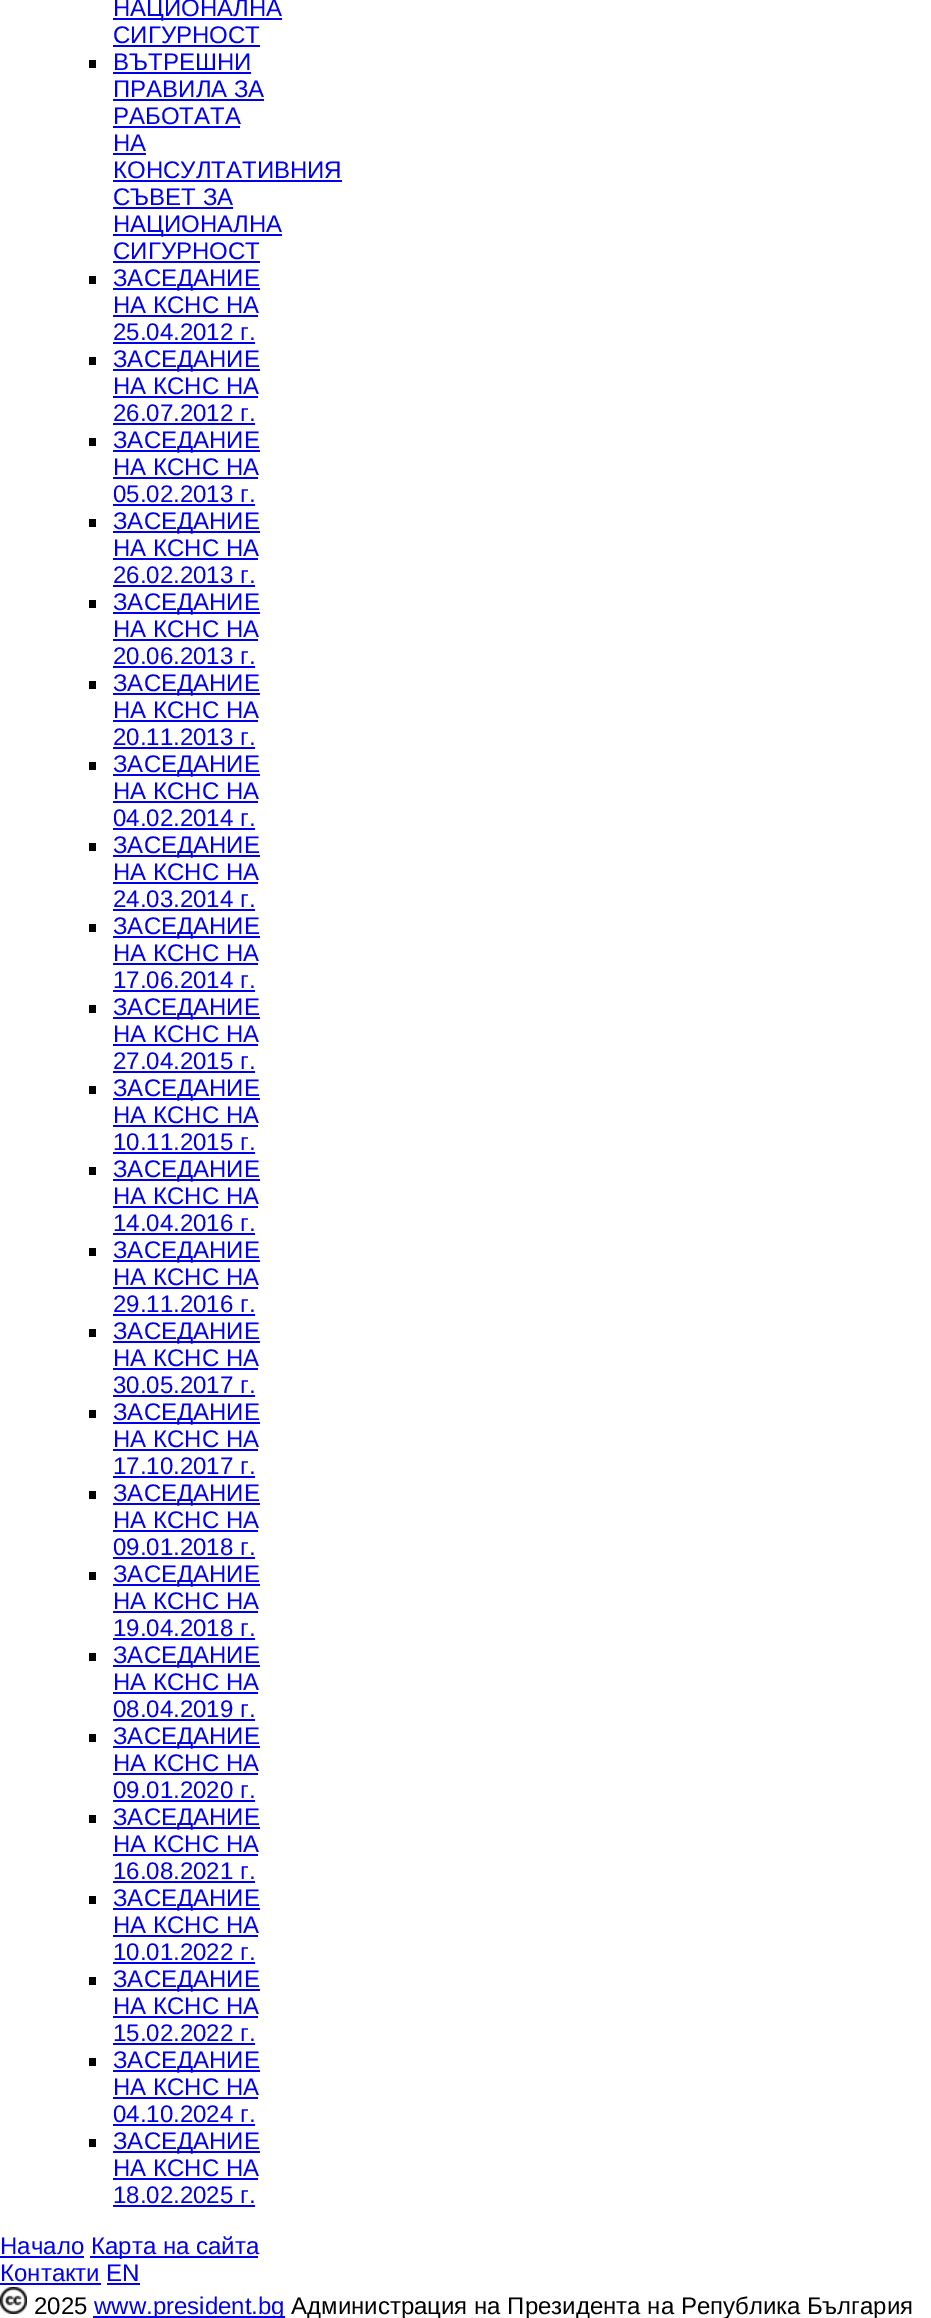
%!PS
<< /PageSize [931 2318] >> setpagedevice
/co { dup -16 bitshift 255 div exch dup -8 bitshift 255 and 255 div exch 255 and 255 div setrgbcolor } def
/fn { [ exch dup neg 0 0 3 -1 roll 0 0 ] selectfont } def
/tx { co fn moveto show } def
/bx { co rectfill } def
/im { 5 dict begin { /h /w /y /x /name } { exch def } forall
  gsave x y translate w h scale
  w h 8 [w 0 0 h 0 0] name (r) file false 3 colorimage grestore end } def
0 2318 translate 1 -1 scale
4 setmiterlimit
0 0 931 2318 16#FFFFFF bx
113 18 169 2 16#0000EE bx
113 45 147 2 16#0000EE bx
89 60 7 8 16#000000 bx
113 72 138 2 16#0000EE bx
113 99 151 2 16#0000EE bx
113 126 127 2 16#0000EE bx
113 153 33 2 16#0000EE bx
113 180 229 2 16#0000EE bx
113 207 120 2 16#0000EE bx
113 234 169 2 16#0000EE bx
113 261 147 2 16#0000EE bx
89 276 7 8 16#000000 bx
113 288 147 2 16#0000EE bx
113 315 145 2 16#0000EE bx
113 342 142 2 16#0000EE bx
89 357 7 8 16#000000 bx
113 369 147 2 16#0000EE bx
113 396 145 2 16#0000EE bx
113 423 142 2 16#0000EE bx
89 438 7 8 16#000000 bx
113 450 147 2 16#0000EE bx
113 477 145 2 16#0000EE bx
113 504 142 2 16#0000EE bx
89 519 7 8 16#000000 bx
113 531 147 2 16#0000EE bx
113 558 145 2 16#0000EE bx
113 585 142 2 16#0000EE bx
89 600 7 8 16#000000 bx
113 612 147 2 16#0000EE bx
113 639 145 2 16#0000EE bx
113 666 142 2 16#0000EE bx
89 681 7 8 16#000000 bx
113 693 147 2 16#0000EE bx
113 720 145 2 16#0000EE bx
113 747 142 2 16#0000EE bx
89 762 7 8 16#000000 bx
113 774 147 2 16#0000EE bx
113 801 145 2 16#0000EE bx
113 828 142 2 16#0000EE bx
89 843 7 8 16#000000 bx
113 855 147 2 16#0000EE bx
113 882 145 2 16#0000EE bx
113 909 142 2 16#0000EE bx
89 924 7 8 16#000000 bx
113 936 147 2 16#0000EE bx
113 963 145 2 16#0000EE bx
113 990 142 2 16#0000EE bx
89 1005 7 8 16#000000 bx
113 1017 147 2 16#0000EE bx
113 1044 145 2 16#0000EE bx
113 1071 142 2 16#0000EE bx
89 1086 7 8 16#000000 bx
113 1098 147 2 16#0000EE bx
113 1125 145 2 16#0000EE bx
113 1152 142 2 16#0000EE bx
89 1167 7 8 16#000000 bx
113 1179 147 2 16#0000EE bx
113 1206 145 2 16#0000EE bx
113 1233 142 2 16#0000EE bx
89 1248 7 8 16#000000 bx
113 1260 147 2 16#0000EE bx
113 1287 145 2 16#0000EE bx
113 1314 142 2 16#0000EE bx
89 1329 7 8 16#000000 bx
113 1341 147 2 16#0000EE bx
113 1368 145 2 16#0000EE bx
113 1395 142 2 16#0000EE bx
89 1410 7 8 16#000000 bx
113 1422 147 2 16#0000EE bx
113 1449 145 2 16#0000EE bx
113 1476 142 2 16#0000EE bx
89 1491 7 8 16#000000 bx
113 1503 147 2 16#0000EE bx
113 1530 145 2 16#0000EE bx
113 1557 142 2 16#0000EE bx
89 1572 7 8 16#000000 bx
113 1584 147 2 16#0000EE bx
113 1611 145 2 16#0000EE bx
113 1638 142 2 16#0000EE bx
89 1653 7 8 16#000000 bx
113 1665 147 2 16#0000EE bx
113 1692 145 2 16#0000EE bx
113 1719 142 2 16#0000EE bx
89 1734 7 8 16#000000 bx
113 1746 147 2 16#0000EE bx
113 1773 145 2 16#0000EE bx
113 1800 142 2 16#0000EE bx
89 1815 7 8 16#000000 bx
113 1827 147 2 16#0000EE bx
113 1854 145 2 16#0000EE bx
113 1881 142 2 16#0000EE bx
89 1896 7 8 16#000000 bx
113 1908 147 2 16#0000EE bx
113 1935 145 2 16#0000EE bx
113 1962 142 2 16#0000EE bx
89 1977 7 8 16#000000 bx
113 1989 147 2 16#0000EE bx
113 2016 145 2 16#0000EE bx
113 2043 142 2 16#0000EE bx
89 2058 7 8 16#000000 bx
113 2070 147 2 16#0000EE bx
113 2097 145 2 16#0000EE bx
113 2124 142 2 16#0000EE bx
89 2139 7 8 16#000000 bx
113 2151 147 2 16#0000EE bx
113 2178 145 2 16#0000EE bx
113 2205 142 2 16#0000EE bx
0 2256 84 2 16#0000EE bx
90 2256 168 2 16#0000EE bx
0 2283 101 2 16#0000EE bx
107 2283 33 2 16#0000EE bx
(media/1.raw) 0 2287 27 27 im
93 2316 192 2 16#0000EE bx
(НАЦИОНАЛНА) 113 16 /LiberationSans-Regular 24 16#0000EE tx
(СИГУРНОСТ) 113 43 /LiberationSans-Regular 24 16#0000EE tx
(ВЪТРЕШНИ) 113 70 /LiberationSans-Regular 24 16#0000EE tx
(ПРАВИЛА ЗА) 113 97 /LiberationSans-Regular 24 16#0000EE tx
(РАБОТАТА) 113 124 /LiberationSans-Regular 24 16#0000EE tx
(НА) 113 151 /LiberationSans-Regular 24 16#0000EE tx
(КОНСУЛТАТИВНИЯ) 113 178 /LiberationSans-Regular 24 16#0000EE tx
(СЪВЕТ ЗА) 113 205 /LiberationSans-Regular 24 16#0000EE tx
(НАЦИОНАЛНА) 113 232 /LiberationSans-Regular 24 16#0000EE tx
(СИГУРНОСТ) 113 259 /LiberationSans-Regular 24 16#0000EE tx
(ЗАСЕДАНИЕ) 113 286 /LiberationSans-Regular 24 16#0000EE tx
(НА КСНС НА) 113 313 /LiberationSans-Regular 24 16#0000EE tx
(25.04.2012 г.) 113 340 /LiberationSans-Regular 24 16#0000EE tx
(ЗАСЕДАНИЕ) 113 367 /LiberationSans-Regular 24 16#0000EE tx
(НА КСНС НА) 113 394 /LiberationSans-Regular 24 16#0000EE tx
(26.07.2012 г.) 113 421 /LiberationSans-Regular 24 16#0000EE tx
(ЗАСЕДАНИЕ) 113 448 /LiberationSans-Regular 24 16#0000EE tx
(НА КСНС НА) 113 475 /LiberationSans-Regular 24 16#0000EE tx
(05.02.2013 г.) 113 502 /LiberationSans-Regular 24 16#0000EE tx
(ЗАСЕДАНИЕ) 113 529 /LiberationSans-Regular 24 16#0000EE tx
(НА КСНС НА) 113 556 /LiberationSans-Regular 24 16#0000EE tx
(26.02.2013 г.) 113 583 /LiberationSans-Regular 24 16#0000EE tx
(ЗАСЕДАНИЕ) 113 610 /LiberationSans-Regular 24 16#0000EE tx
(НА КСНС НА) 113 637 /LiberationSans-Regular 24 16#0000EE tx
(20.06.2013 г.) 113 664 /LiberationSans-Regular 24 16#0000EE tx
(ЗАСЕДАНИЕ) 113 691 /LiberationSans-Regular 24 16#0000EE tx
(НА КСНС НА) 113 718 /LiberationSans-Regular 24 16#0000EE tx
(20.11.2013 г.) 113 745 /LiberationSans-Regular 24 16#0000EE tx
(ЗАСЕДАНИЕ) 113 772 /LiberationSans-Regular 24 16#0000EE tx
(НА КСНС НА) 113 799 /LiberationSans-Regular 24 16#0000EE tx
(04.02.2014 г.) 113 826 /LiberationSans-Regular 24 16#0000EE tx
(ЗАСЕДАНИЕ) 113 853 /LiberationSans-Regular 24 16#0000EE tx
(НА КСНС НА) 113 880 /LiberationSans-Regular 24 16#0000EE tx
(24.03.2014 г.) 113 907 /LiberationSans-Regular 24 16#0000EE tx
(ЗАСЕДАНИЕ) 113 934 /LiberationSans-Regular 24 16#0000EE tx
(НА КСНС НА) 113 961 /LiberationSans-Regular 24 16#0000EE tx
(17.06.2014 г.) 113 988 /LiberationSans-Regular 24 16#0000EE tx
(ЗАСЕДАНИЕ) 113 1015 /LiberationSans-Regular 24 16#0000EE tx
(НА КСНС НА) 113 1042 /LiberationSans-Regular 24 16#0000EE tx
(27.04.2015 г.) 113 1069 /LiberationSans-Regular 24 16#0000EE tx
(ЗАСЕДАНИЕ) 113 1096 /LiberationSans-Regular 24 16#0000EE tx
(НА КСНС НА) 113 1123 /LiberationSans-Regular 24 16#0000EE tx
(10.11.2015 г.) 113 1150 /LiberationSans-Regular 24 16#0000EE tx
(ЗАСЕДАНИЕ) 113 1177 /LiberationSans-Regular 24 16#0000EE tx
(НА КСНС НА) 113 1204 /LiberationSans-Regular 24 16#0000EE tx
(14.04.2016 г.) 113 1231 /LiberationSans-Regular 24 16#0000EE tx
(ЗАСЕДАНИЕ) 113 1258 /LiberationSans-Regular 24 16#0000EE tx
(НА КСНС НА) 113 1285 /LiberationSans-Regular 24 16#0000EE tx
(29.11.2016 г.) 113 1312 /LiberationSans-Regular 24 16#0000EE tx
(ЗАСЕДАНИЕ) 113 1339 /LiberationSans-Regular 24 16#0000EE tx
(НА КСНС НА) 113 1366 /LiberationSans-Regular 24 16#0000EE tx
(30.05.2017 г.) 113 1393 /LiberationSans-Regular 24 16#0000EE tx
(ЗАСЕДАНИЕ) 113 1420 /LiberationSans-Regular 24 16#0000EE tx
(НА КСНС НА) 113 1447 /LiberationSans-Regular 24 16#0000EE tx
(17.10.2017 г.) 113 1474 /LiberationSans-Regular 24 16#0000EE tx
(ЗАСЕДАНИЕ) 113 1501 /LiberationSans-Regular 24 16#0000EE tx
(НА КСНС НА) 113 1528 /LiberationSans-Regular 24 16#0000EE tx
(09.01.2018 г.) 113 1555 /LiberationSans-Regular 24 16#0000EE tx
(ЗАСЕДАНИЕ) 113 1582 /LiberationSans-Regular 24 16#0000EE tx
(НА КСНС НА) 113 1609 /LiberationSans-Regular 24 16#0000EE tx
(19.04.2018 г.) 113 1636 /LiberationSans-Regular 24 16#0000EE tx
(ЗАСЕДАНИЕ) 113 1663 /LiberationSans-Regular 24 16#0000EE tx
(НА КСНС НА) 113 1690 /LiberationSans-Regular 24 16#0000EE tx
(08.04.2019 г.) 113 1717 /LiberationSans-Regular 24 16#0000EE tx
(ЗАСЕДАНИЕ) 113 1744 /LiberationSans-Regular 24 16#0000EE tx
(НА КСНС НА) 113 1771 /LiberationSans-Regular 24 16#0000EE tx
(09.01.2020 г.) 113 1798 /LiberationSans-Regular 24 16#0000EE tx
(ЗАСЕДАНИЕ) 113 1825 /LiberationSans-Regular 24 16#0000EE tx
(НА КСНС НА) 113 1852 /LiberationSans-Regular 24 16#0000EE tx
(16.08.2021 г.) 113 1879 /LiberationSans-Regular 24 16#0000EE tx
(ЗАСЕДАНИЕ) 113 1906 /LiberationSans-Regular 24 16#0000EE tx
(НА КСНС НА) 113 1933 /LiberationSans-Regular 24 16#0000EE tx
(10.01.2022 г.) 113 1960 /LiberationSans-Regular 24 16#0000EE tx
(ЗАСЕДАНИЕ) 113 1987 /LiberationSans-Regular 24 16#0000EE tx
(НА КСНС НА) 113 2014 /LiberationSans-Regular 24 16#0000EE tx
(15.02.2022 г.) 113 2041 /LiberationSans-Regular 24 16#0000EE tx
(ЗАСЕДАНИЕ) 113 2068 /LiberationSans-Regular 24 16#0000EE tx
(НА КСНС НА) 113 2095 /LiberationSans-Regular 24 16#0000EE tx
(04.10.2024 г.) 113 2122 /LiberationSans-Regular 24 16#0000EE tx
(ЗАСЕДАНИЕ) 113 2149 /LiberationSans-Regular 24 16#0000EE tx
(НА КСНС НА) 113 2176 /LiberationSans-Regular 24 16#0000EE tx
(18.02.2025 г.) 113 2203 /LiberationSans-Regular 24 16#0000EE tx
(Начало) 0 2254 /LiberationSans-Regular 24 16#0000EE tx
(Карта на сайта) 91 2254 /LiberationSans-Regular 24 16#0000EE tx
(Контакти EN) 0 2281 /LiberationSans-Regular 24 16#0000EE tx
(2025) 34 2314 /LiberationSans-Regular 24 16#000000 tx
(www.president.bg) 94 2314 /LiberationSans-Regular 24 16#0000EE tx
(Администрация на Президента на Република България) 291 2314 /LiberationSans-Regular 24 16#000000 tx
showpage
